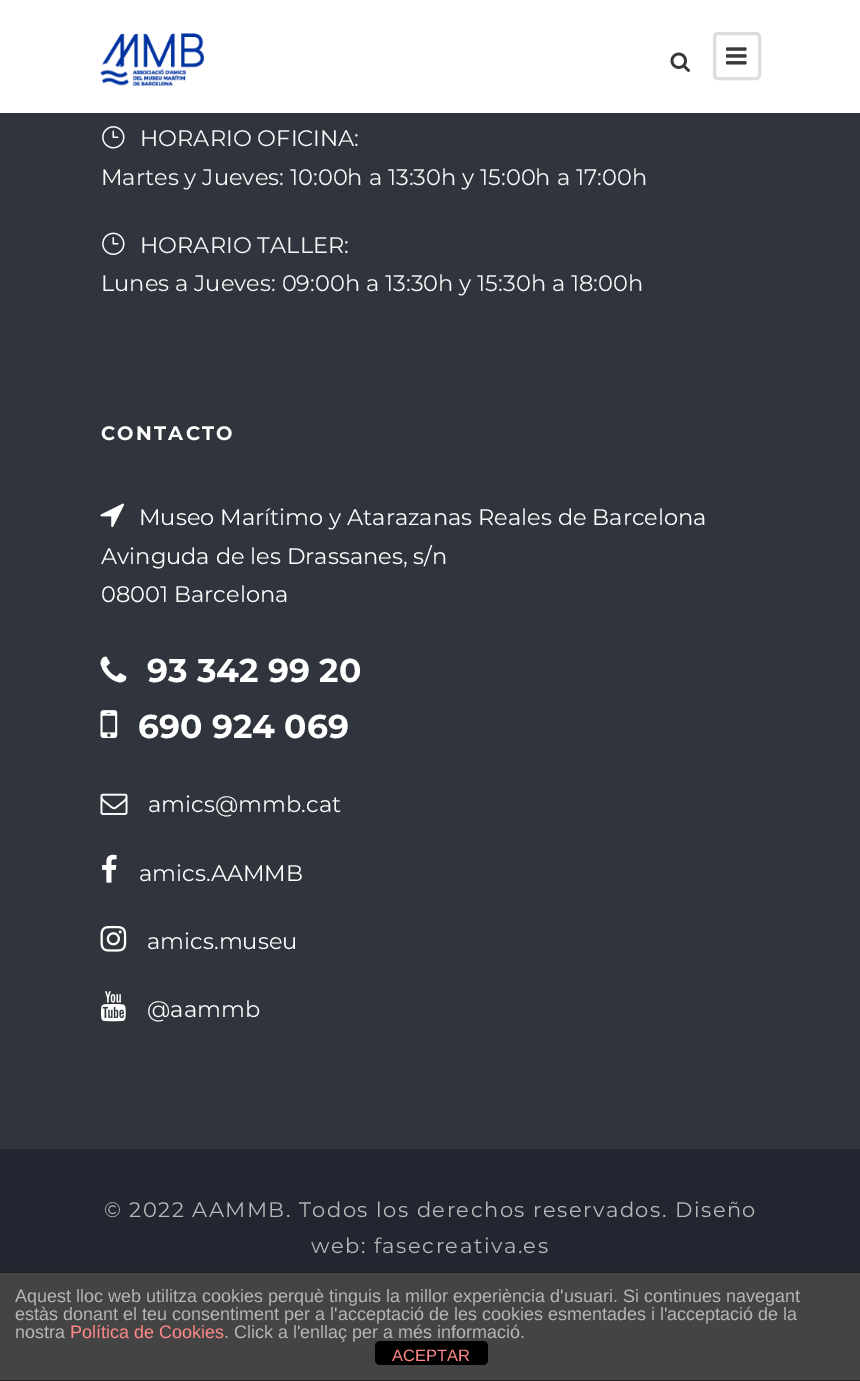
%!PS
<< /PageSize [860 1381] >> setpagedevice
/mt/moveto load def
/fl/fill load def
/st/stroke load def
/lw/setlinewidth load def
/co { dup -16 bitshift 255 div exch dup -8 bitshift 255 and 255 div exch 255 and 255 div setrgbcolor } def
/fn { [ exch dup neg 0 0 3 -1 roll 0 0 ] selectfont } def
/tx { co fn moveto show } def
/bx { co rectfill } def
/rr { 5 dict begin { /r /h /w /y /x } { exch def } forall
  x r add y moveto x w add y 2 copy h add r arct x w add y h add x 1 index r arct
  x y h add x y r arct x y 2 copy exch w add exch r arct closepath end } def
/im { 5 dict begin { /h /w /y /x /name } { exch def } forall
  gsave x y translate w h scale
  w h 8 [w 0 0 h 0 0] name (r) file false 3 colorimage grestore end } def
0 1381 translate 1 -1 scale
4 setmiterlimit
0 0 860 1381 16#30343C bx
0 0 860 113 16#FFFFFF bx
(media/1.raw) 100 33 104 53 im
(media/2.raw) 670 52 20 20 im
16#DDDDDD co
3 lw
714.5 33.5 45 45 3.5 rr st
(media/3.raw) 726 47 21 18 im
(media/4.raw) 102 126 23 23 im
(media/5.raw) 102 232 23 23 im
(media/6.raw) 100 503 24 25 im
(media/7.raw) 100 656 27 27 im
(media/8.raw) 100 710 18 28 im
(media/9.raw) 100 793 28 22 im
(media/10.raw) 102 854 15 29 im
(media/11.raw) 100 925 27 27 im
(media/12.raw) 100 991 26 31 im
0 1149 860 122 16#222631 bx
0 1273 860 107 16#444444 bx
0 1271 860 2 16#222222 bx
0 1380 860 1 16#222222 bx
16#000000 co
375 1341 113 24 5 rr fl
(HORARIO OFICINA:) 140 146 /Montserrat-Regular 22.5 16#F7F7F7 tx
(Martes y Jueves: 10:00h a 13:30h y 15:00h a 17:00h) 101 185 /Montserrat-Regular 22.5 16#F7F7F7 tx
(HORARIO TALLER:) 140 253 /Montserrat-Regular 22.5 16#F7F7F7 tx
(Lunes a Jueves: 09:00h a 13:30h y 15:30h a 18:00h) 101 291 /Montserrat-Regular 22.5 16#F7F7F7 tx
/Montserrat-Bold 19.5 fn
16#FFFFFF co
101 440 mt 2.25 0 (CONTACTO) ashow
(Museo Marítimo y Atarazanas Reales de Barcelona) 139 525 /Montserrat-Regular 22.5 16#FFFFFF tx
(Avinguda de les Drassanes, s/n) 101 564 /Montserrat-Regular 22.5 16#FFFFFF tx
(08001 Barcelona) 101 602 /Montserrat-Regular 22.5 16#FFFFFF tx
(93 342 99 20) 147 682 /Montserrat-Bold 33 16#FFFFFF tx
(690 924 069) 138 738 /Montserrat-Bold 33 16#FFFFFF tx
(amics@mmb.cat) 148 812 /Montserrat-Regular 22.5 16#FFFFFF tx
(amics.AAMMB) 139 881 /Montserrat-Regular 22.5 16#FFFFFF tx
(amics.museu) 147 949 /Montserrat-Regular 22.5 16#FFFFFF tx
(@aammb) 147 1017 /Montserrat-Regular 22.5 16#FFFFFF tx
/Montserrat-Regular 21 fn
16#B7B7B7 co
104 1217 mt 1.5 0 (© 2022 AAMMB. Todos los derechos reservados. Diseño) ashow
311 1253 mt 1.5 0 (web: fasecreativa.es) ashow
(Aquest lloc web utilitza cookies perquè tinguis la millor experiència d'usuari. Si continues navegant) 15 1302 /LiberationSans-Regular 18 16#B7B7B7 tx
(estàs donant el teu consentiment per a l'acceptació de les cookies esmentades i l'acceptació de la) 15 1320 /LiberationSans-Regular 18 16#B7B7B7 tx
(nostra) 15 1338 /LiberationSans-Regular 18 16#B7B7B7 tx
(Política de Cookies) 70 1338 /LiberationSans-Regular 18 16#FF8888 tx
(. Click a l'enllaç per a més informació.) 224 1338 /LiberationSans-Regular 18 16#B7B7B7 tx
(ACEPTAR) 392 1361 /LiberationSans-Regular 16.5 16#FF8888 tx
showpage
